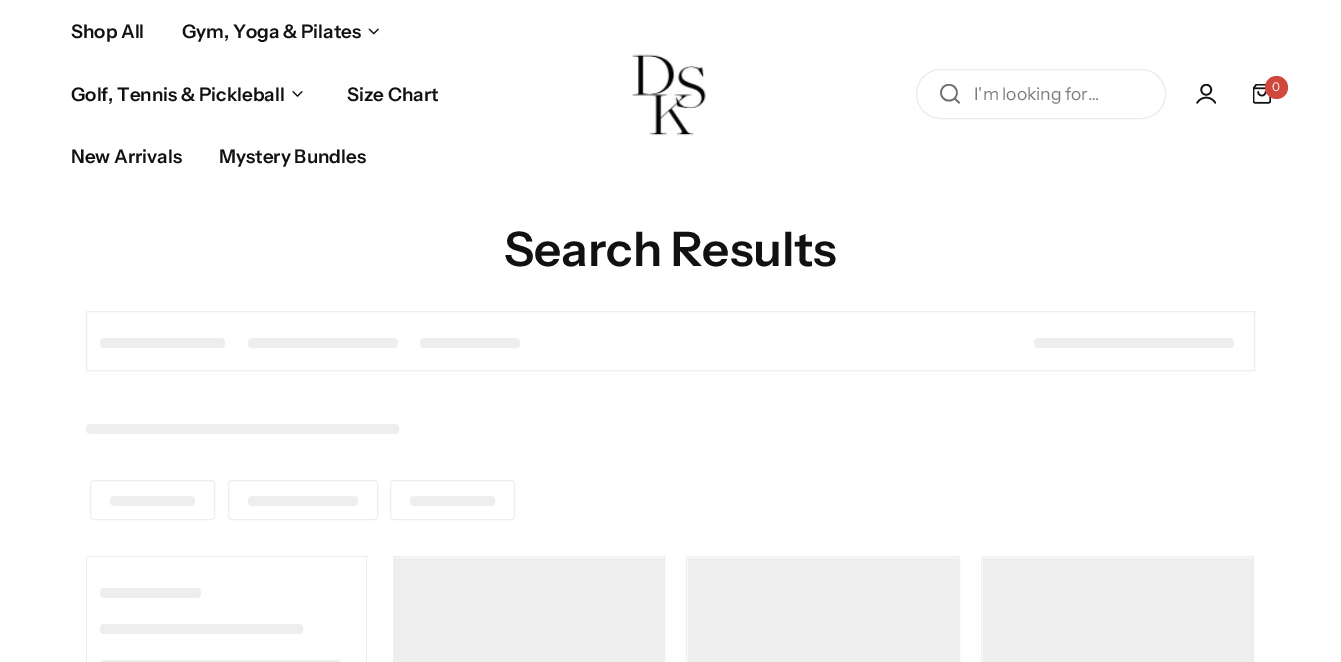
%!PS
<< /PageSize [1341 662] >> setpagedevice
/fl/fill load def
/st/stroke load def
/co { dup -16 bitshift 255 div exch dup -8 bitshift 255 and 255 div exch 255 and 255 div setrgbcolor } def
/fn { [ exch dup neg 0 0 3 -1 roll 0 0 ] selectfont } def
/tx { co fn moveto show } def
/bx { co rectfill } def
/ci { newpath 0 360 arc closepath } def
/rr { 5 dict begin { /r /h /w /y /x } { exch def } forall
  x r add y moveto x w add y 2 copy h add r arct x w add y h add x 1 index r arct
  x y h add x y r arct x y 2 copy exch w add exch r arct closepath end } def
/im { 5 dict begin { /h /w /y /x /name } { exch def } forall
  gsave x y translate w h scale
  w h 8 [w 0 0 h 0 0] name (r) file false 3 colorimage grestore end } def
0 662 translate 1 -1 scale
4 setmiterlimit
0 0 1341 662 16#FFFFFF bx
(media/1.raw) 368 28 11 7 im
(media/2.raw) 292 91 11 6 im
(media/3.raw) 631 54 75 82 im
16#EBEBEB co
916.5 69.5 249 49 24.5 rr st
(media/4.raw) 940 84 20 20 im
(media/5.raw) 1196 84 20 20 im
(media/6.raw) 1253 84 18 20 im
16#D0473E co
1276.5 87.5 11.5 ci fl
16#EEEEEE co
86.5 311.5 1168 59 rectstroke
100 338 125 10 4 rr fl
248 338 150 10 4 rr fl
420 338 100 10 4 rr fl
1034 338 200 10 4 rr fl
86 424 313 10 4 rr fl
90.5 480.5 124 39 3.5 rr st
110 496 85 10 4 rr fl
228.5 480.5 149 39 3.5 rr st
248 496 110 10 4 rr fl
390.5 480.5 124 39 3.5 rr st
410 496 85 10 4 rr fl
86 556 282 1 16#EEEEEE bx
366 556 1 106 16#EEEEEE bx
86 556 1 106 16#EEEEEE bx
100 588 101 10 4 rr fl
100 624 203 10 4 rr fl
100 660 241 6 4 rr fl
393.5 556.5 271 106 rectstroke
394 558 270 104 16#EEEEEE bx
686.5 556.5 273 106 rectstroke
688 558 271 104 16#EEEEEE bx
981.5 556.5 272 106 rectstroke
983 558 270 104 16#EEEEEE bx
(Shop All) 71 38 /InstrumentSans-SemiBold 18.75 16#111111 tx
(Gym, Yoga & Pilates) 182 38 /InstrumentSans-SemiBold 18.75 16#111111 tx
(Golf, Tennis & Pickleball) 71 101 /InstrumentSans-SemiBold 18.75 16#111111 tx
(Size Chart) 347 101 /InstrumentSans-SemiBold 18.75 16#111111 tx
(New Arrivals) 71 163 /InstrumentSans-SemiBold 18.75 16#111111 tx
(Mystery Bundles) 219 163 /InstrumentSans-SemiBold 18.75 16#111111 tx
(I'm looking for…) 974 100 /InstrumentSans-Regular 17.5 16#7C7C7C tx
(0) 1272 91 /InstrumentSans-Regular 12 16#FFFFFF tx
(Search Results) 504 266 /InstrumentSans-SemiBold 47.5 16#111111 tx
showpage
